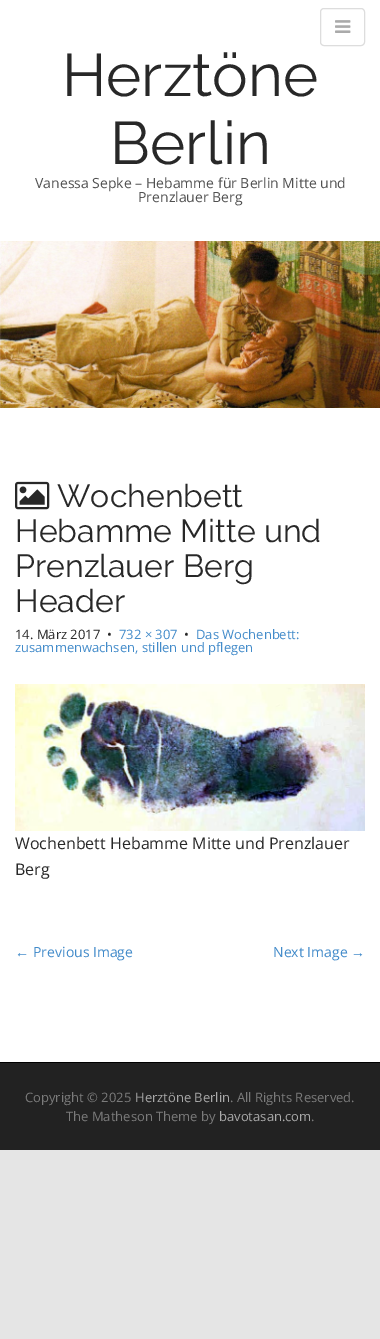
%!PS
<< /PageSize [380 1339] >> setpagedevice
/st/stroke load def
/co { dup -16 bitshift 255 div exch dup -8 bitshift 255 and 255 div exch 255 and 255 div setrgbcolor } def
/fn { [ exch dup neg 0 0 3 -1 roll 0 0 ] selectfont } def
/tx { co fn moveto show } def
/bx { co rectfill } def
/rr { 5 dict begin { /r /h /w /y /x } { exch def } forall
  x r add y moveto x w add y 2 copy h add r arct x w add y h add x 1 index r arct
  x y h add x y r arct x y 2 copy exch w add exch r arct closepath end } def
/im { 5 dict begin { /h /w /y /x /name } { exch def } forall
  gsave x y translate w h scale
  w h 8 [w 0 0 h 0 0] name (r) file false 3 colorimage grestore end } def
0 1339 translate 1 -1 scale
4 setmiterlimit
0 0 380 1339 16#E5E5E5 bx
0 0 380 1062 16#FFFFFF bx
16#DDDDDD co
320.5 8.5 44 37 3.5 rr st
(media/1.raw) 335 20 16 13 im
(media/2.raw) 0 241 380 167 im
(media/3.raw) 15 481 35 29 im
(media/4.raw) 15 684 350 147 im
0 1063 380 87 16#222222 bx
0 1062 380 1 16#000000 bx
(Herztöne) 62 96 /Raleway-Thin 60 16#282828 tx
(Berlin) 110 164 /Raleway-Thin 60 16#282828 tx
(Vanessa Sepke – Hebamme für Berlin Mitte und) 35 188 /OpenSans-Regular 14 16#515151 tx
(Prenzlauer Berg) 138 202 /OpenSans-Regular 14 16#515151 tx
(Wochenbett) 57 507 /Raleway-Thin 32 16#282828 tx
(Hebamme Mitte und) 15 542 /Raleway-Thin 32 16#282828 tx
(Prenzlauer Berg) 15 577 /Raleway-Thin 32 16#282828 tx
(Header) 15 612 /Raleway-Thin 32 16#282828 tx
(14. März 2017) 15 639 /OpenSans-Regular 13 16#282828 tx
(•) 107 639 /OpenSans-Regular 13 16#282828 tx
(732 × 307) 119 639 /OpenSans-Regular 13 16#428BCA tx
(•) 184 639 /OpenSans-Regular 13 16#282828 tx
(Das Wochenbett:) 196 639 /OpenSans-Regular 13 16#428BCA tx
(zusammenwachsen, stillen und pflegen) 15 652 /OpenSans-Regular 13 16#428BCA tx
(Wochenbett Hebamme Mitte und Prenzlauer) 15 849 /OpenSans-Regular 16 16#282828 tx
(Berg) 15 875 /OpenSans-Regular 16 16#282828 tx
(←) 15 957 /LiberationSans-Regular 14 16#428BCA tx
(Previous Image) 33 957 /OpenSans-Regular 14 16#428BCA tx
(Next Image) 273 957 /OpenSans-Regular 14 16#428BCA tx
(→) 351 957 /LiberationSans-Regular 14 16#428BCA tx
(Copyright © 2025) 25 1102 /OpenSans-Regular 13 16#7B7B7B tx
(Herztöne Berlin) 135 1102 /OpenSans-Regular 13 16#AAAAAA tx
(. All Rights Reserved.) 230 1102 /OpenSans-Regular 13 16#7B7B7B tx
(The Matheson Theme by) 66 1121 /OpenSans-Regular 13 16#7B7B7B tx
(bavotasan.com) 219 1121 /OpenSans-Regular 13 16#AAAAAA tx
(.) 311 1121 /OpenSans-Regular 13 16#7B7B7B tx
showpage
